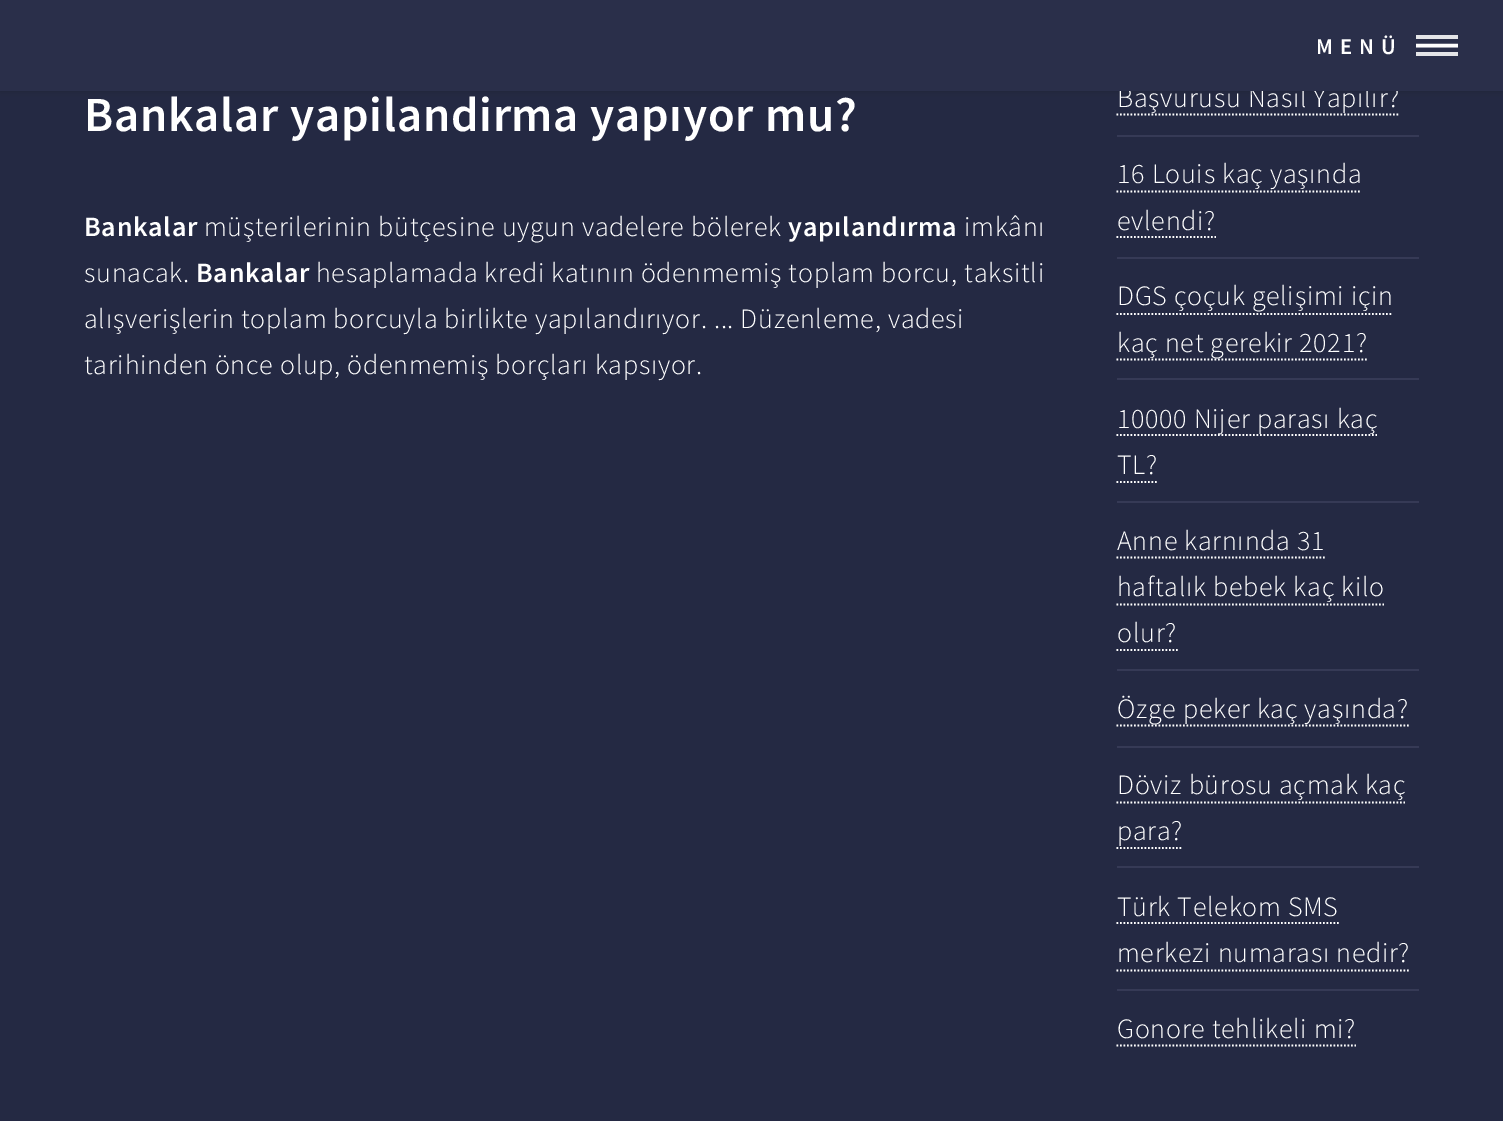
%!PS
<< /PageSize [1503 1121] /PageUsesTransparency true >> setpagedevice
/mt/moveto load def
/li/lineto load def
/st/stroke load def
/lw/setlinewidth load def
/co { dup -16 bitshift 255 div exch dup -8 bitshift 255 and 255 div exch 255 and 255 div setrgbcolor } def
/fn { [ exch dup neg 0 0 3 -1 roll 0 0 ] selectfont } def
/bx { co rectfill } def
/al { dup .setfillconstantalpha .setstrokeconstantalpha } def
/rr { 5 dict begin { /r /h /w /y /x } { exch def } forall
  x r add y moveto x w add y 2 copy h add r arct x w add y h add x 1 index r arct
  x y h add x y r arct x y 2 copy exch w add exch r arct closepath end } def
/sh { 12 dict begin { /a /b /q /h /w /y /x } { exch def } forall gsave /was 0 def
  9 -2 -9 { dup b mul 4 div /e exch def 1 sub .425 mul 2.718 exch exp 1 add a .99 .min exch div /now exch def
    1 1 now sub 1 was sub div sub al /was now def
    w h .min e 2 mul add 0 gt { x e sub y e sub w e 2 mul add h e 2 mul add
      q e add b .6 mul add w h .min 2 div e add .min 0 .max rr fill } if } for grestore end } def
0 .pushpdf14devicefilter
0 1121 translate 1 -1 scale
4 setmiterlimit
0 0 1503 1121 16#242943 bx
16#000000 co
0 0 1503 91 0 3.5 .15 sh
16#FFFFFF co
1.8 lw
[1.75 1.75] 0 setdash
1116.5 114.5 mt 1400 114.5 li st
1117 135 302 2 16#363A56 bx
16#FFFFFF co
1116.5 191.5 mt 1361.5 191.5 li st
1116.5 237 mt 1216 237 li st
1117 257 302 2 16#363A56 bx
16#FFFFFF co
1116.5 314 mt 1393 314 li st
1116.5 359.5 mt 1368.5 359.5 li st
1117 378 302 2 16#363A56 bx
16#FFFFFF co
1116.5 435 mt 1377 435 li st
1116.5 482 mt 1158.5 482 li st
1117 501 302 2 16#363A56 bx
16#FFFFFF co
1116.5 557.5 mt 1325 557.5 li st
1116.5 604.5 mt 1384 604.5 li st
1116.5 650 mt 1178 650 li st
1117 669 302 2 16#363A56 bx
16#FFFFFF co
1116.5 725.5 mt 1409 725.5 li st
1117 746 302 2 16#363A56 bx
16#FFFFFF co
1116.5 802.5 mt 1405 802.5 li st
1116.5 848 mt 1183 848 li st
1117 866 302 2 16#363A56 bx
16#FFFFFF co
1116.5 923 mt 1339 923 li st
1116.5 970.5 mt 1410.5 970.5 li st
1117 989 302 2 16#363A56 bx
16#FFFFFF co
1116.5 1045.5 mt 1356 1045.5 li st
/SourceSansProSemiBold-SemiBold 49 fn
84 131 mt .7 0 (Bankalar yapilandirma yapıyor mu?) ashow
/SourceSansProSemiBold-SemiBold 28 fn
84 236 mt .7 0 (Bankalar) ashow
/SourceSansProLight-Light 28 fn
204 236 mt .7 0 (müşterilerinin bütçesine uygun vadelere bölerek) ashow
/SourceSansProSemiBold-SemiBold 28 fn
788 236 mt .7 0 (yapılandırma) ashow
/SourceSansProLight-Light 28 fn
964 236 mt .7 0 (imkânı) ashow
84 282 mt .7 0 (sunacak.) ashow
/SourceSansProSemiBold-SemiBold 28 fn
196 282 mt .7 0 (Bankalar) ashow
/SourceSansProLight-Light 28 fn
316 282 mt .7 0 (hesaplamada kredi katının ödenmemiş toplam borcu, taksitli) ashow
84 328 mt .7 0 (alışverişlerin toplam borcuyla birlikte yapılandırıyor. ... Düzenleme, vadesi) ashow
84 374 mt .7 0 (tarihinden önce olup, ödenmemiş borçları kapsıyor.) ashow
1117 107 mt .7 0 (Başvurusu Nasıl Yapılır?) ashow
0 0 1503 91 16#2A2F4A bx
16#FFFFFF co
3.5 lw
[] 0 setdash
1416 45.5 mt 1458 45.5 li 1416 45.5 mt 1458 45.5 li st
1416 52 42 4 16#E4E5E8 bx
1416 35 42 4 16#E4E5E8 bx
/SourceSansProSemiBold-SemiBold 22.5 fn
16#FFFFFF co
1316 54 mt 7 0 (MENÜ) ashow
/SourceSansProLight-Light 28 fn
1117 183 mt .7 0 (16 Louis kaç yaşında) ashow
1117 230 mt .7 0 (evlendi?) ashow
1117 305 mt .7 0 (DGS çoçuk gelişimi için) ashow
1117 352 mt .7 0 (kaç net gerekir 2021?) ashow
1117 428 mt .7 0 (10000 Nijer parası kaç) ashow
1117 474 mt .7 0 (TL?) ashow
1117 550 mt .7 0 (Anne karnında 31) ashow
1117 596 mt .7 0 (haftalık bebek kaç kilo) ashow
1117 642 mt .7 0 (olur?) ashow
1117 718 mt .7 0 (Özge peker kaç yaşında?) ashow
1117 794 mt .7 0 (Döviz bürosu açmak kaç) ashow
1117 840 mt .7 0 (para?) ashow
1117 916 mt .7 0 (Türk Telekom SMS) ashow
1117 962 mt .7 0 (merkezi numarası nedir?) ashow
1117 1038 mt .7 0 (Gonore tehlikeli mi?) ashow
.poppdf14devicefilter showpage
